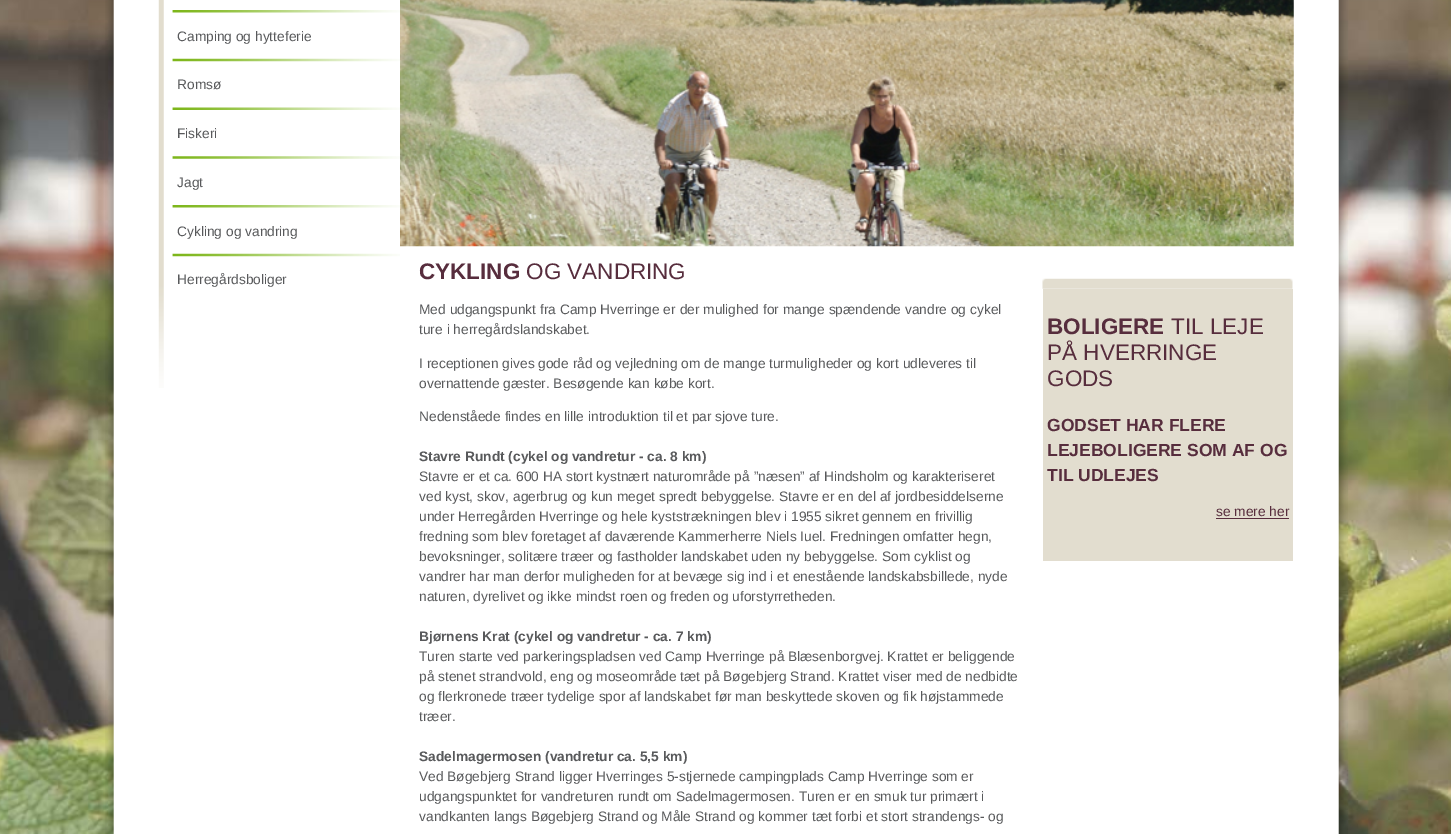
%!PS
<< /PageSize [1451 834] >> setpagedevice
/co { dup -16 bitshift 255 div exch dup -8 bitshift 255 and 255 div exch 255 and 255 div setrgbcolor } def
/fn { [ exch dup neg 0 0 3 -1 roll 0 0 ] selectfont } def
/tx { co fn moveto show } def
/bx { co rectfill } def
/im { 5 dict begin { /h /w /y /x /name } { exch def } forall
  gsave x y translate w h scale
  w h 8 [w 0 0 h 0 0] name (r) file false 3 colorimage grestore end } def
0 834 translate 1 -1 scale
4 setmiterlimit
0 0 1451 834 16#FFFFFF bx
(media/1.raw) 0 0 1451 834 im
(media/2.raw) 105 0 1243 834 im
(media/3.raw) 158 0 6 388 im
(media/4.raw) 172 10 228 3 im
(media/5.raw) 172 58 228 4 im
(media/6.raw) 172 107 228 3 im
(media/7.raw) 172 156 228 3 im
(media/4.raw) 172 205 228 3 im
(media/5.raw) 172 253 228 4 im
(media/8.raw) 400 0 894 247 im
(media/9.raw) 1042 278 251 11 im
1043 289 250 272 16#E2DDCF bx
1216 518 73 1 16#572D3D bx
(Camping og hytteferie) 177 41 /LiberationSans-Regular 13.75 16#58595B tx
(Romsø) 177 89 /LiberationSans-Regular 13.75 16#58595B tx
(Fiskeri) 177 138 /LiberationSans-Regular 13.75 16#58595B tx
(Jagt) 177 187 /LiberationSans-Regular 13.75 16#58595B tx
(Cykling og vandring) 177 236 /LiberationSans-Regular 13.75 16#58595B tx
(Herregårdsboliger) 177 284 /LiberationSans-Regular 13.75 16#58595B tx
(CYKLING) 419 279 /LiberationSans-Bold 22.5 16#572D3D tx
(OG VANDRING) 526 279 /LiberationSans-Regular 22.5 16#572D3D tx
(Med udgangspunkt fra Camp Hverringe er der mulighed for mange spændende vandre og cykel) 419 314 /LiberationSans-Regular 13.75 16#58595B tx
(ture i herregårdslandskabet.) 419 334 /LiberationSans-Regular 13.75 16#58595B tx
(I receptionen gives gode råd og vejledning om de mange turmuligheder og kort udleveres til) 419 368 /LiberationSans-Regular 13.75 16#58595B tx
(overnattende gæster. Besøgende kan købe kort.) 419 388 /LiberationSans-Regular 13.75 16#58595B tx
(Nedenståede findes en lille introduktion til et par sjove ture.) 419 421 /LiberationSans-Regular 13.75 16#58595B tx
(Stavre Rundt \(cykel og vandretur - ca. 8 km\)) 419 461 /LiberationSans-Bold 13.75 16#58595B tx
(Stavre er et ca. 600 HA stort kystnært naturområde på ”næsen” af Hindsholm og karakteriseret) 419 481 /LiberationSans-Regular 13.75 16#58595B tx
(ved kyst, skov, agerbrug og kun meget spredt bebyggelse. Stavre er en del af jordbesiddelserne) 419 501 /LiberationSans-Regular 13.75 16#58595B tx
(under Herregården Hverringe og hele kyststrækningen blev i 1955 sikret gennem en frivillig) 419 521 /LiberationSans-Regular 13.75 16#58595B tx
(fredning som blev foretaget af daværende Kammerherre Niels Iuel. Fredningen omfatter hegn,) 419 541 /LiberationSans-Regular 13.75 16#58595B tx
(bevoksninger, solitære træer og fastholder landskabet uden ny bebyggelse. Som cyklist og) 419 561 /LiberationSans-Regular 13.75 16#58595B tx
(vandrer har man derfor muligheden for at bevæge sig ind i et enestående landskabsbillede, nyde) 419 581 /LiberationSans-Regular 13.75 16#58595B tx
(naturen, dyrelivet og ikke mindst roen og freden og uforstyrretheden.) 419 601 /LiberationSans-Regular 13.75 16#58595B tx
(Bjørnens Krat \(cykel og vandretur - ca. 7 km\)) 419 641 /LiberationSans-Bold 13.75 16#58595B tx
(Turen starte ved parkeringspladsen ved Camp Hverringe på Blæsenborgvej. Krattet er beliggende) 419 661 /LiberationSans-Regular 13.75 16#58595B tx
(på stenet strandvold, eng og moseområde tæt på Bøgebjerg Strand. Krattet viser med de nedbidte) 419 681 /LiberationSans-Regular 13.75 16#58595B tx
(og flerkronede træer tydelige spor af landskabet før man beskyttede skoven og fik højstammede) 419 701 /LiberationSans-Regular 13.75 16#58595B tx
(træer.) 419 721 /LiberationSans-Regular 13.75 16#58595B tx
(Sadelmagermosen \(vandretur ca. 5,5 km\)) 419 761 /LiberationSans-Bold 13.75 16#58595B tx
(Ved Bøgebjerg Strand ligger Hverringes 5-stjernede campingplads Camp Hverringe som er) 419 781 /LiberationSans-Regular 13.75 16#58595B tx
(udgangspunktet for vandreturen rundt om Sadelmagermosen. Turen er en smuk tur primært i) 419 801 /LiberationSans-Regular 13.75 16#58595B tx
(vandkanten langs Bøgebjerg Strand og Måle Strand og kommer tæt forbi et stort strandengs- og) 419 821 /LiberationSans-Regular 13.75 16#58595B tx
(BOLIGERE) 1047 334 /LiberationSans-Bold 22.5 16#572D3D tx
(TIL LEJE) 1171 334 /LiberationSans-Regular 22.5 16#572D3D tx
(PÅ HVERRINGE) 1047 360 /LiberationSans-Regular 22.5 16#572D3D tx
(GODS) 1047 386 /LiberationSans-Regular 22.5 16#572D3D tx
(GODSET HAR FLERE) 1047 431 /LiberationSans-Bold 17.5 16#572D3D tx
(LEJEBOLIGERE SOM AF OG) 1047 456 /LiberationSans-Bold 17.5 16#572D3D tx
(TIL UDLEJES) 1047 481 /LiberationSans-Bold 17.5 16#572D3D tx
(se mere her) 1216 516 /LiberationSans-Regular 13.75 16#572D3D tx
showpage
